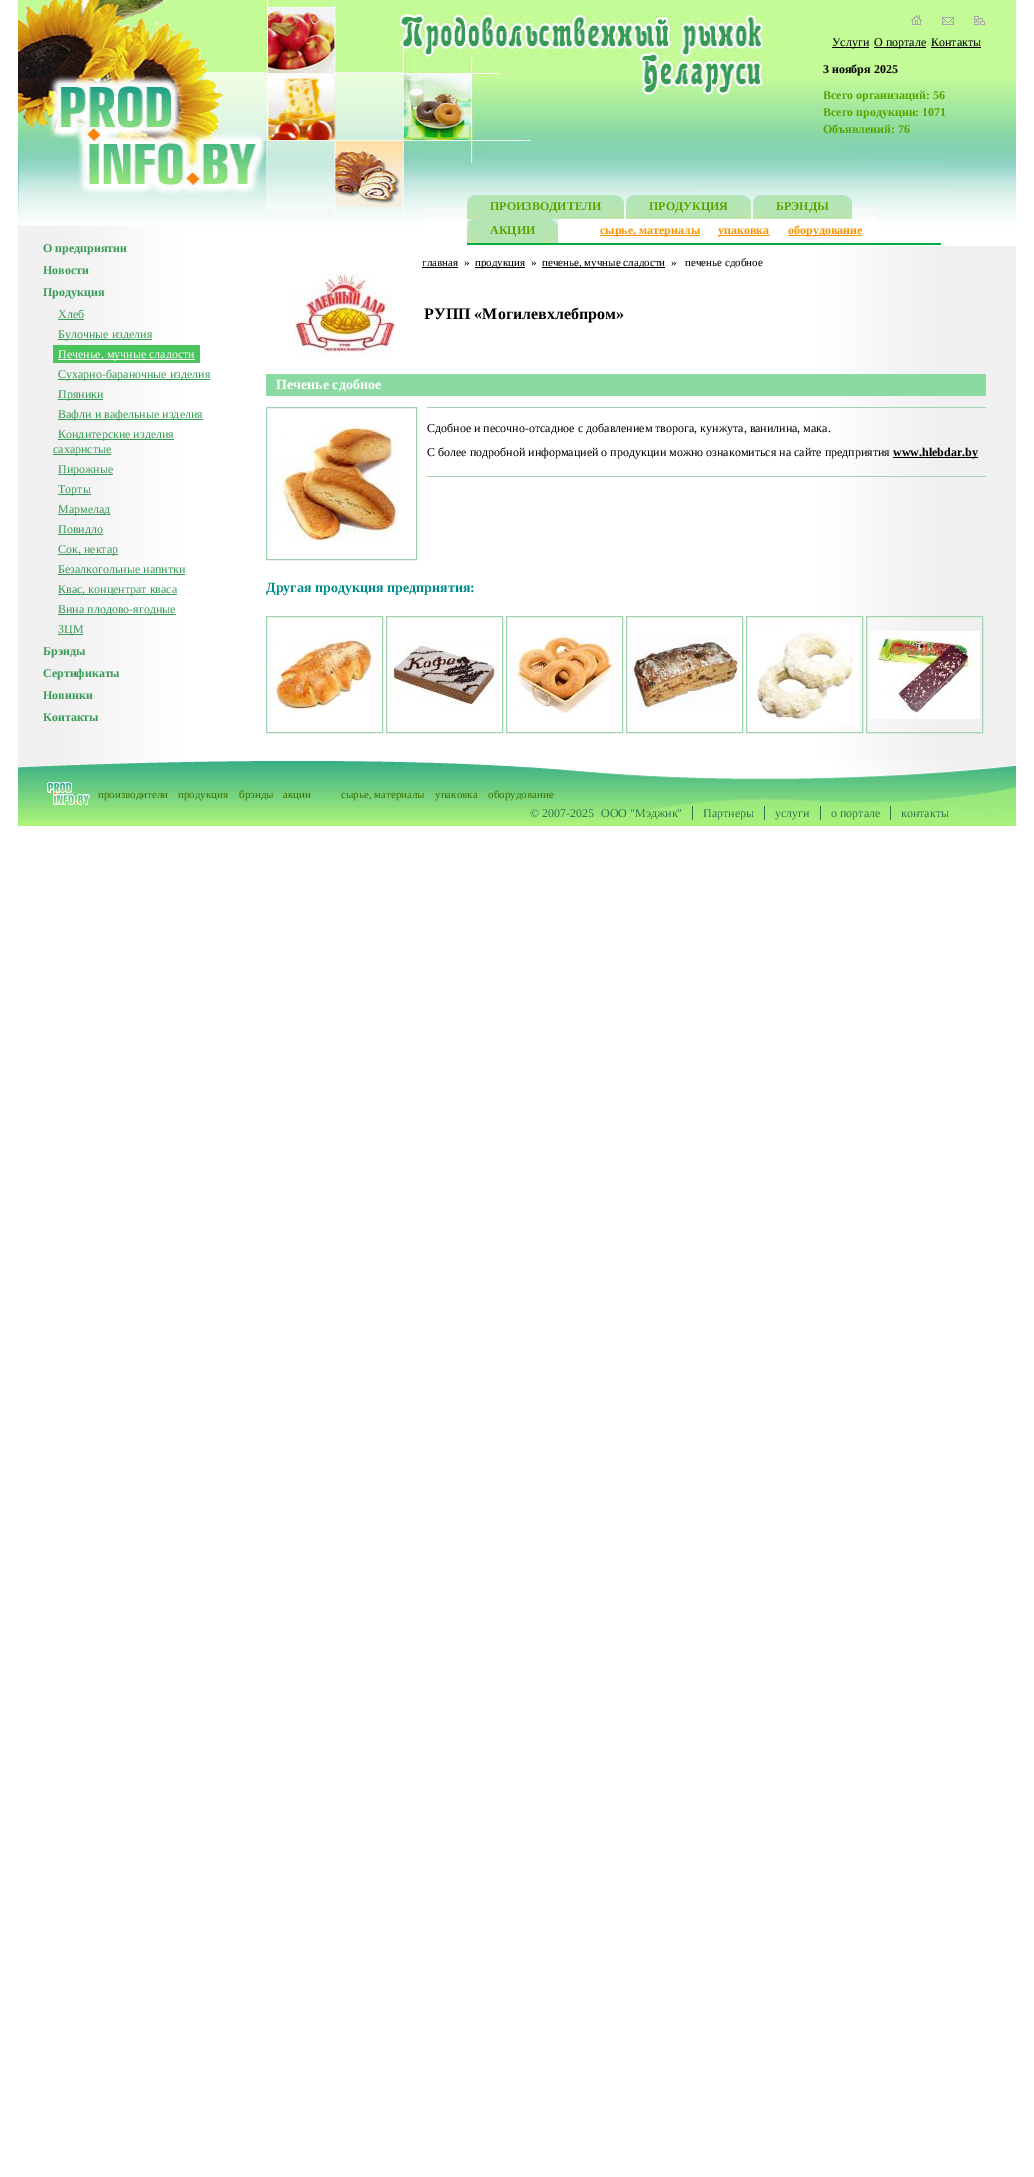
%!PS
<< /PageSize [1034 2177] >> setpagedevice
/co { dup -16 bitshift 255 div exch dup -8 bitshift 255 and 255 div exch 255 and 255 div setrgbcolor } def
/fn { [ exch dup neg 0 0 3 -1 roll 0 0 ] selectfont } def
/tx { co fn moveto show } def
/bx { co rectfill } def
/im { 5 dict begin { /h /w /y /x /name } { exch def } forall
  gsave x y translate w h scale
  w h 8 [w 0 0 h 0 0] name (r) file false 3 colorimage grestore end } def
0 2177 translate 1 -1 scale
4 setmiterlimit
0 0 1034 2177 16#FFFFFF bx
(media/1.raw) 18 226 998 535 im
(media/2.raw) 18 0 998 226 im
(media/3.raw) 911 15 11 10 im
(media/4.raw) 942 17 12 8 im
(media/5.raw) 974 16 11 9 im
832 47 37 1 16#000000 bx
874 47 52 1 16#000000 bx
931 47 50 1 16#000000 bx
850 226 166 20 16#FFFFFF bx
467 243 474 2 16#01AE42 bx
479 195 128 24 16#B5E5B3 bx
(media/6.raw) 467 195 12 24 im
(media/7.raw) 607 195 17 24 im
638 195 96 24 16#B5E5B3 bx
(media/8.raw) 626 195 12 24 im
(media/7.raw) 734 195 17 24 im
765 195 70 24 16#B5E5B3 bx
(media/8.raw) 753 195 12 24 im
(media/7.raw) 835 195 17 24 im
479 219 62 24 16#B5E5B3 bx
(media/9.raw) 467 219 12 24 im
(media/10.raw) 541 219 17 24 im
600 235 100 1 16#F99300 bx
718 235 52 1 16#F99300 bx
788 235 74 1 16#F99300 bx
58 319 26 1 16#379B55 bx
58 339 94 1 16#379B55 bx
53 345 147 18 16#4AC45C bx
58 359 137 1 16#FFFFFF bx
58 379 152 1 16#379B55 bx
58 399 45 1 16#379B55 bx
58 419 145 1 16#379B55 bx
58 439 116 1 16#379B55 bx
53 454 58 1 16#379B55 bx
58 474 55 1 16#379B55 bx
58 494 33 1 16#379B55 bx
58 514 52 1 16#379B55 bx
58 534 45 1 16#379B55 bx
58 554 60 1 16#379B55 bx
58 574 127 1 16#379B55 bx
58 594 119 1 16#379B55 bx
58 614 118 1 16#379B55 bx
58 634 25 1 16#379B55 bx
422 267 36 1 16#000000 bx
475 267 50 1 16#000000 bx
542 267 123 1 16#000000 bx
(media/11.raw) 295 273 100 81 im
266 374 720 22 16#8CDAA3 bx
16#A1D5B1 co
266.5 407.5 150 152 rectstroke
(media/12.raw) 271 427 128 114 im
427 407 559 1 16#A1D5B1 bx
427 476 559 1 16#A1D5B1 bx
893 457 85 1 16#000000 bx
16#A1D5B1 co
266.5 616.5 116 116 rectstroke
(media/13.raw) 270 633 110 80 im
386.5 616.5 116 116 rectstroke
(media/14.raw) 390 641 110 65 im
506.5 616.5 116 116 rectstroke
(media/15.raw) 510 633 110 81 im
626.5 616.5 116 116 rectstroke
(media/16.raw) 630 638 110 73 im
746.5 616.5 116 116 rectstroke
(media/17.raw) 750 624 110 102 im
866.5 616.5 116 116 rectstroke
(media/18.raw) 870 631 110 88 im
(media/19.raw) 18 761 998 65 im
(media/20.raw) 47 782 43 23 im
692 806 1 14 16#2E7A4F bx
764 806 1 14 16#2E7A4F bx
820 806 1 14 16#2E7A4F bx
890 806 1 14 16#2E7A4F bx
(Услуги) 832 46 /LiberationSerif-Regular 12 16#000000 tx
(О портале) 874 46 /LiberationSerif-Regular 12 16#000000 tx
(Контакты) 931 46 /LiberationSerif-Regular 12 16#000000 tx
(ПРОИЗВОДИТЕЛИ) 490 210 /LiberationSerif-Bold 12 16#57A600 tx
(ПРОДУКЦИЯ) 649 210 /LiberationSerif-Bold 12 16#57A600 tx
(БРЭНДЫ) 776 210 /LiberationSerif-Bold 12 16#57A600 tx
(АКЦИИ) 490 234 /LiberationSerif-Bold 12 16#57A600 tx
(сырье, материалы) 600 234 /LiberationSerif-Bold 12 16#F99300 tx
(упаковка) 718 234 /LiberationSerif-Bold 12 16#F99300 tx
(оборудование) 788 234 /LiberationSerif-Bold 12 16#F99300 tx
(3 ноября 2025) 823 73 /LiberationSerif-Bold 12 16#000000 tx
(Всего организаций: 56) 823 99 /LiberationSerif-Bold 12 16#57A600 tx
(Всего продукции: 1071) 823 116 /LiberationSerif-Bold 12 16#57A600 tx
(Объявлений: 76) 823 133 /LiberationSerif-Bold 12 16#57A600 tx
(О предприятии) 43 252 /LiberationSerif-Bold 12 16#379B55 tx
(Новости) 43 274 /LiberationSerif-Bold 12 16#379B55 tx
(Продукция) 43 296 /LiberationSerif-Bold 12 16#379B55 tx
(Хлеб) 58 318 /LiberationSerif-Regular 12 16#379B55 tx
(Булочные изделия) 58 338 /LiberationSerif-Regular 12 16#379B55 tx
(Печенье, мучные сладости) 58 358 /LiberationSerif-Regular 12 16#FFFFFF tx
(Сухарно-бараночные изделия) 58 378 /LiberationSerif-Regular 12 16#379B55 tx
(Пряники) 58 398 /LiberationSerif-Regular 12 16#379B55 tx
(Вафли и вафельные изделия) 58 418 /LiberationSerif-Regular 12 16#379B55 tx
(Кондитерские изделия) 58 438 /LiberationSerif-Regular 12 16#379B55 tx
(сахаристые) 53 453 /LiberationSerif-Regular 12 16#379B55 tx
(Пирожные) 58 473 /LiberationSerif-Regular 12 16#379B55 tx
(Торты) 58 493 /LiberationSerif-Regular 12 16#379B55 tx
(Мармелад) 58 513 /LiberationSerif-Regular 12 16#379B55 tx
(Повидло) 58 533 /LiberationSerif-Regular 12 16#379B55 tx
(Сок, нектар) 58 553 /LiberationSerif-Regular 12 16#379B55 tx
(Безалкогольные напитки) 58 573 /LiberationSerif-Regular 12 16#379B55 tx
(Квас, концентрат кваса) 58 593 /LiberationSerif-Regular 12 16#379B55 tx
(Вина плодово-ягодные) 58 613 /LiberationSerif-Regular 12 16#379B55 tx
(ЗЦМ) 58 633 /LiberationSerif-Regular 12 16#379B55 tx
(Брэнды) 43 655 /LiberationSerif-Bold 12 16#379B55 tx
(Сертификаты) 43 677 /LiberationSerif-Bold 12 16#379B55 tx
(Новинки) 43 699 /LiberationSerif-Bold 12 16#379B55 tx
(Контакты) 43 721 /LiberationSerif-Bold 12 16#379B55 tx
(главная) 422 266 /LiberationSerif-Regular 11 16#000000 tx
(») 464 266 /LiberationSerif-Regular 11 16#000000 tx
(продукция) 475 266 /LiberationSerif-Regular 11 16#000000 tx
(») 531 266 /LiberationSerif-Regular 11 16#000000 tx
(печенье, мучные сладости) 542 266 /LiberationSerif-Regular 11 16#000000 tx
(») 671 266 /LiberationSerif-Regular 11 16#000000 tx
(печенье сдобное) 685 266 /LiberationSerif-Regular 11 16#000000 tx
(РУПП «Могилевхлебпром») 424 319 /LiberationSerif-Bold 16 16#000000 tx
(Печенье сдобное) 276 389 /LiberationSerif-Bold 14 16#FFFFFF tx
(Сдобное и песочно-отсадное с добавлением творога, кунжута, ванилина, мака.) 427 432 /LiberationSerif-Regular 12 16#000000 tx
(С более подробной информацией о продукции можно ознакомиться на сайте предприятия) 427 456 /LiberationSerif-Regular 12 16#000000 tx
(www.hlebdar.by) 893 456 /LiberationSerif-Bold 12 16#000000 tx
(Другая продукция предприятия:) 266 592 /LiberationSerif-Bold 14 16#008C8C tx
(производители) 98 798 /LiberationSerif-Regular 11 16#3E7500 tx
(продукция) 178 798 /LiberationSerif-Regular 11 16#3E7500 tx
(брэнды) 239 798 /LiberationSerif-Regular 11 16#3E7500 tx
(акции) 283 798 /LiberationSerif-Regular 11 16#3E7500 tx
(сырье, материалы) 341 798 /LiberationSerif-Regular 11 16#3E7500 tx
(упаковка) 435 798 /LiberationSerif-Regular 11 16#3E7500 tx
(оборудование) 488 798 /LiberationSerif-Regular 11 16#3E7500 tx
(© 2007-2025) 530 817 /LiberationSerif-Regular 12 16#2E7A4F tx
(ООО "Мэджик") 601 817 /LiberationSerif-Regular 12 16#2E7A4F tx
(Партнеры) 703 817 /LiberationSerif-Regular 12 16#2E7A4F tx
(услуги) 775 817 /LiberationSerif-Regular 12 16#2E7A4F tx
(о портале) 831 817 /LiberationSerif-Regular 12 16#2E7A4F tx
(контакты) 901 817 /LiberationSerif-Regular 12 16#2E7A4F tx
showpage
